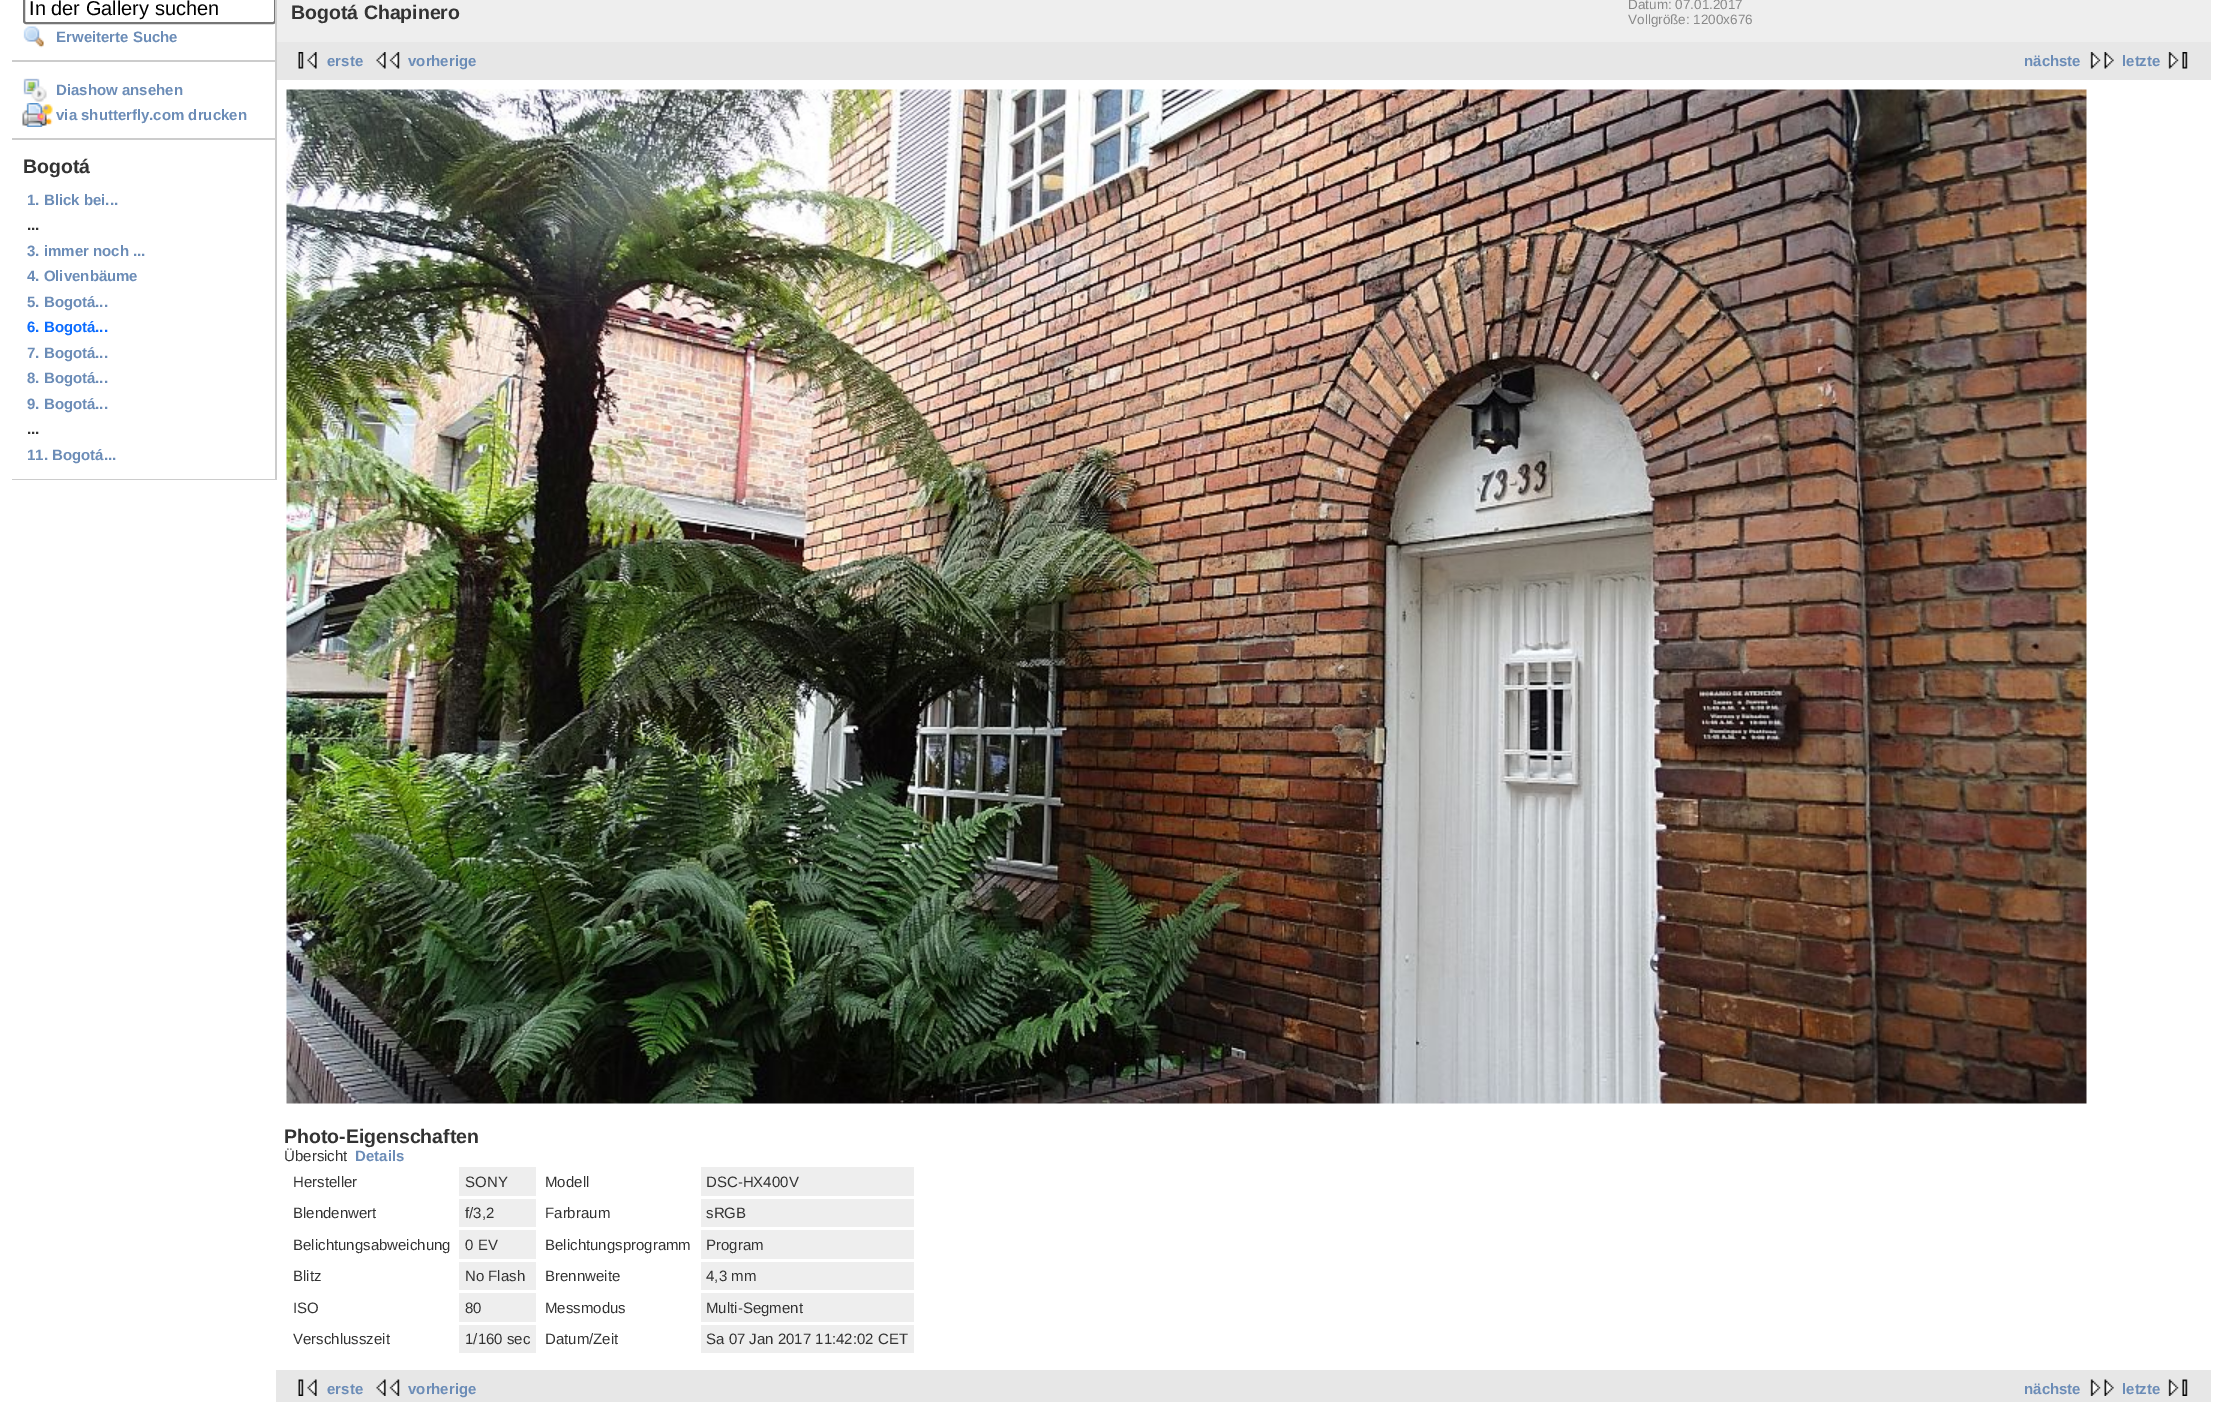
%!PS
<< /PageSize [2222 1402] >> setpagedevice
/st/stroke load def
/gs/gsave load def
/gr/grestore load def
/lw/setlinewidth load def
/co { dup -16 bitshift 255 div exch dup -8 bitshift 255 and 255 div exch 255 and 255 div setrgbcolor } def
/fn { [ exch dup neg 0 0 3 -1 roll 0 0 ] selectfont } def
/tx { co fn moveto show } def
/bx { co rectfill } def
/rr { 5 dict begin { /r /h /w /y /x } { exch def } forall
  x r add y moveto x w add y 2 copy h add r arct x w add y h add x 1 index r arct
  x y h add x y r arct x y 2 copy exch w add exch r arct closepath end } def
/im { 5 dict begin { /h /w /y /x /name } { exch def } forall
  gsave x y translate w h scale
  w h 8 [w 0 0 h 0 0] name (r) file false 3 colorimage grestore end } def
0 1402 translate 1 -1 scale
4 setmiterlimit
0 0 2222 1402 16#FFFFFF bx
275 0 2 480 16#CCCCCC bx
12 60 263 2 16#CCCCCC bx
gs
12 0 263 480 rectclip
16#767676 co
2 lw
24 -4 251 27 2 rr st
gr
(media/1.raw) 23 26 21 22 im
12 138 263 2 16#CCCCCC bx
(media/2.raw) 23 78 24 24 im
(media/3.raw) 22 103 31 24 im
12 479 263 1 16#CCCCCC bx
277 0 1934 42 16#EEEEEE bx
277 42 1934 38 16#E7E7E7 bx
(media/4.raw) 298 52 19 17 im
(media/5.raw) 376 52 24 17 im
(media/6.raw) 2090 52 24 17 im
(media/7.raw) 2168 52 20 17 im
(media/8.raw) 286 89 1801 1015 im
459 1167 77 29 16#EEEEEE bx
701 1167 213 29 16#EEEEEE bx
459 1199 77 28 16#EEEEEE bx
701 1199 213 28 16#EEEEEE bx
459 1230 77 29 16#EEEEEE bx
701 1230 213 29 16#EEEEEE bx
459 1262 77 28 16#EEEEEE bx
701 1262 213 28 16#EEEEEE bx
459 1293 77 29 16#EEEEEE bx
701 1293 213 29 16#EEEEEE bx
459 1325 77 28 16#EEEEEE bx
701 1325 213 28 16#EEEEEE bx
276 1370 1935 32 16#E7E7E7 bx
(media/9.raw) 298 1379 19 17 im
(media/10.raw) 376 1379 24 17 im
(media/11.raw) 2090 1379 24 17 im
(media/12.raw) 2168 1379 20 17 im
(In der Gallery suchen) 29 15 /LiberationSans-Regular 20 16#000000 tx
(Erweiterte Suche) 56 42 /LiberationSans-Bold 15 16#6B8CB7 tx
(Diashow ansehen) 56 95 /LiberationSans-Bold 15 16#6B8CB7 tx
(via shutterfly.com drucken) 56 120 /LiberationSans-Bold 15 16#6B8CB7 tx
(Bogotá) 23 173 /LiberationSans-Bold 19.5 16#333333 tx
(1. Blick bei...) 27 205 /LiberationSans-Bold 15 16#6B8CB7 tx
(...) 27 230 /LiberationSans-Bold 15 16#333333 tx
(3. immer noch ...) 27 256 /LiberationSans-Bold 15 16#6B8CB7 tx
(4. Olivenbäume) 27 281 /LiberationSans-Bold 15 16#6B8CB7 tx
(5. Bogotá...) 27 307 /LiberationSans-Bold 15 16#6B8CB7 tx
(6. Bogotá...) 27 332 /LiberationSans-Bold 15 16#0B6CFF tx
(7. Bogotá...) 27 358 /LiberationSans-Bold 15 16#6B8CB7 tx
(8. Bogotá...) 27 383 /LiberationSans-Bold 15 16#6B8CB7 tx
(9. Bogotá...) 27 409 /LiberationSans-Bold 15 16#6B8CB7 tx
(...) 27 434 /LiberationSans-Bold 15 16#333333 tx
(11. Bogotá...) 27 460 /LiberationSans-Bold 15 16#6B8CB7 tx
(Bogotá Chapinero) 291 19 /LiberationSans-Bold 19.5 16#333333 tx
(Datum: 07.01.2017) 1628 9 /LiberationSans-Regular 13.5 16#888888 tx
(Vollgröße: 1200x676) 1628 24 /LiberationSans-Regular 13.5 16#888888 tx
(erste) 327 66 /LiberationSans-Bold 15 16#6B8CB7 tx
(vorherige) 408 66 /LiberationSans-Bold 15 16#6B8CB7 tx
(nächste) 2024 66 /LiberationSans-Bold 15 16#6B8CB7 tx
(letzte) 2122 66 /LiberationSans-Bold 15 16#6B8CB7 tx
(Photo-Eigenschaften) 284 1143 /LiberationSans-Bold 19.5 16#333333 tx
(Übersicht) 284 1161 /LiberationSans-Regular 15 16#333333 tx
(Details) 355 1161 /LiberationSans-Bold 15 16#6B8CB7 tx
(Hersteller) 293 1187 /LiberationSans-Regular 15 16#333333 tx
(SONY) 465 1187 /LiberationSans-Regular 15 16#333333 tx
(Modell) 545 1187 /LiberationSans-Regular 15 16#333333 tx
(DSC-HX400V) 706 1187 /LiberationSans-Regular 15 16#333333 tx
(Blendenwert) 293 1218 /LiberationSans-Regular 15 16#333333 tx
(f/3,2) 465 1218 /LiberationSans-Regular 15 16#333333 tx
(Farbraum) 545 1218 /LiberationSans-Regular 15 16#333333 tx
(sRGB) 706 1218 /LiberationSans-Regular 15 16#333333 tx
(Belichtungsabweichung) 293 1250 /LiberationSans-Regular 15 16#333333 tx
(0 EV) 465 1250 /LiberationSans-Regular 15 16#333333 tx
(Belichtungsprogramm) 545 1250 /LiberationSans-Regular 15 16#333333 tx
(Program) 706 1250 /LiberationSans-Regular 15 16#333333 tx
(Blitz) 293 1281 /LiberationSans-Regular 15 16#333333 tx
(No Flash) 465 1281 /LiberationSans-Regular 15 16#333333 tx
(Brennweite) 545 1281 /LiberationSans-Regular 15 16#333333 tx
(4,3 mm) 706 1281 /LiberationSans-Regular 15 16#333333 tx
(ISO) 293 1313 /LiberationSans-Regular 15 16#333333 tx
(80) 465 1313 /LiberationSans-Regular 15 16#333333 tx
(Messmodus) 545 1313 /LiberationSans-Regular 15 16#333333 tx
(Multi-Segment) 706 1313 /LiberationSans-Regular 15 16#333333 tx
(Verschlusszeit) 293 1344 /LiberationSans-Regular 15 16#333333 tx
(1/160 sec) 465 1344 /LiberationSans-Regular 15 16#333333 tx
(Datum/Zeit) 545 1344 /LiberationSans-Regular 15 16#333333 tx
(Sa 07 Jan 2017 11:42:02 CET) 706 1344 /LiberationSans-Regular 15 16#333333 tx
(erste) 327 1394 /LiberationSans-Bold 15 16#6B8CB7 tx
(vorherige) 408 1394 /LiberationSans-Bold 15 16#6B8CB7 tx
(nächste) 2024 1394 /LiberationSans-Bold 15 16#6B8CB7 tx
(letzte) 2122 1394 /LiberationSans-Bold 15 16#6B8CB7 tx
showpage
